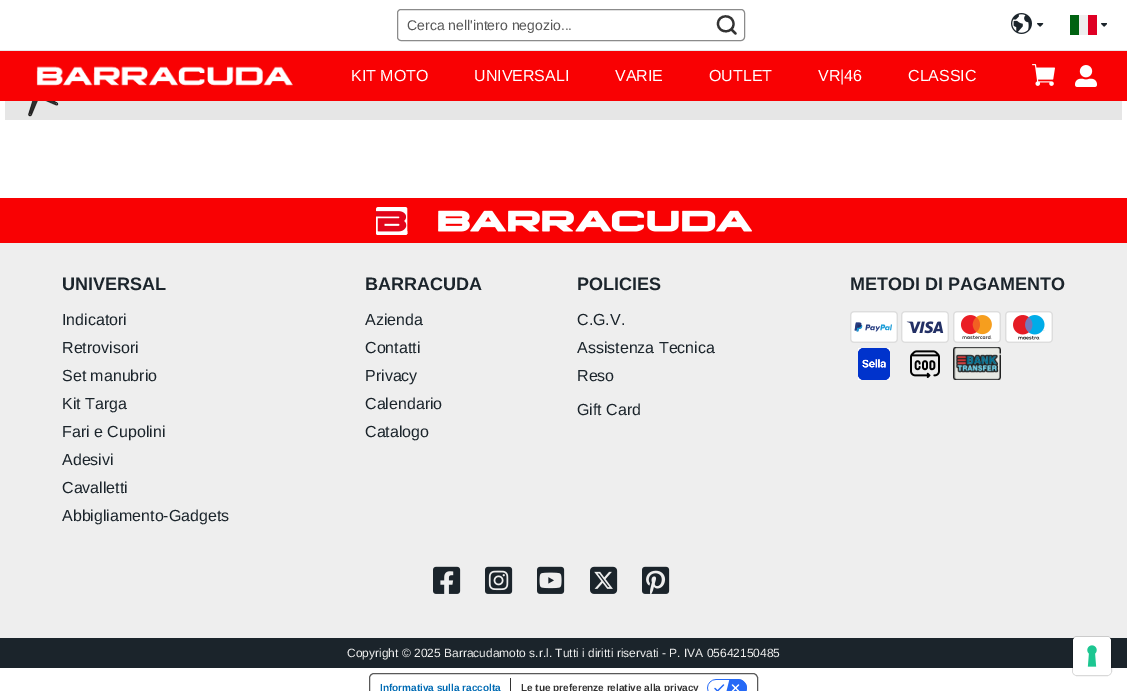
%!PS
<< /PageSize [1127 691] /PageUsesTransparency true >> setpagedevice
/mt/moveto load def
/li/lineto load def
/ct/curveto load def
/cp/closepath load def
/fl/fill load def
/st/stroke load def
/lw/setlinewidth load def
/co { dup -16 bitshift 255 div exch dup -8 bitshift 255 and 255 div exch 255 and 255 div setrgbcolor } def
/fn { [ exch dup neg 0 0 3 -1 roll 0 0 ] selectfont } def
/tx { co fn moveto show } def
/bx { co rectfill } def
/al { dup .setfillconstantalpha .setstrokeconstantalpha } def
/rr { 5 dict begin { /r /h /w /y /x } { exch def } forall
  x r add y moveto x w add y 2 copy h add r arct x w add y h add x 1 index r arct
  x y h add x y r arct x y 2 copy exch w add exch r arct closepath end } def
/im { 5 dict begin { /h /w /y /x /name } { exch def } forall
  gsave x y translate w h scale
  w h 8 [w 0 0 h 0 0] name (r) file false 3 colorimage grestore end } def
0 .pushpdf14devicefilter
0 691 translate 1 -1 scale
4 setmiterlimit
0 0 1127 691 16#FFFFFF bx
0 51 1127 50 16#F90103 bx
0 50 1127 1 16#E8E8E8 bx
16#8B8B8B co
397.5 9.5 347 31 3.5 rr st
16#333333 co
2.2 lw
1 setlinecap
1 setlinejoin
733.5 24 mt 733.5 33.5 718.5 34 718 24 ct 717.5 14 733.5 13.5 733.5 24 ct cp 735.5 33.5 mt 731.5 29.5 li st
(media/1.raw) 1011 13 21 21 im
(media/2.raw) 1037 23 7 4 im
1070 15 9 20 16#006211 bx
1079 15 9 20 16#EEEEEE bx
1088 15 9 20 16#DF0024 bx
(media/3.raw) 1101 23 6 4 im
(media/4.raw) 36 66 257 20 im
(media/5.raw) 1032 64 23 22 im
(media/6.raw) 1075 65 22 22 im
5 101 1117 19 16#E6E6E6 bx
(media/7.raw) 27 101 32 16 im
0 198 1127 45 16#F90103 bx
(media/8.raw) 376 207 376 28 im
0 243 1127 395 16#EEEEEE bx
(media/9.raw) 850 311 48 32 im
(media/10.raw) 901 311 48 32 im
(media/11.raw) 953 311 48 32 im
(media/12.raw) 1005 311 48 32 im
(media/13.raw) 858 348 32 32 im
(media/14.raw) 910 350 30 28 im
(media/15.raw) 953 347 48 33 im
(media/16.raw) 433 566 28 28 im
(media/17.raw) 485 566 28 28 im
(media/18.raw) 537 566 28 28 im
(media/19.raw) 590 566 28 28 im
(media/20.raw) 642 566 28 28 im
0 638 1127 30 16#1B242B bx
0.15 al
16#000000 co
1 lw
0 setlinecap
0 setlinejoin
1072.5 636.5 39 39 4.5 rr st
1 al
16#FFFFFF co
1073 637 38 38 4 rr fl
(media/21.raw) 1087 645 10 22 im
16#595959 co
369.5 673.5 388 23 4.5 rr st
510 678 1 13 16#333333 bx
(media/22.raw) 707 679 40 12 im
(Cerca nell'intero negozio...) 407 30 /LiberationSans-Regular 14 16#575757 tx
(KIT MOTO) 351 81 /LiberationSans-Regular 16 16#FFFFFF tx
(UNIVERSALI) 474 81 /LiberationSans-Regular 16 16#FFFFFF tx
(VARIE) 615 81 /LiberationSans-Regular 16 16#FFFFFF tx
(OUTLET) 709 81 /LiberationSans-Regular 16 16#FFFFFF tx
(VR|46) 818 81 /LiberationSans-Regular 16 16#FFFFFF tx
(CLASSIC) 908 81 /LiberationSans-Regular 16 16#FFFFFF tx
(UNIVERSAL) 62 290 /LiberationSans-Bold 18 16#1B242B tx
(Indicatori) 62 325 /LiberationSans-Regular 16 16#1B242B tx
(Retrovisori) 62 353 /LiberationSans-Regular 16 16#1B242B tx
(Set manubrio) 62 381 /LiberationSans-Regular 16 16#1B242B tx
(Kit Targa) 62 409 /LiberationSans-Regular 16 16#1B242B tx
(Fari e Cupolini) 62 437 /LiberationSans-Regular 16 16#1B242B tx
(Adesivi) 62 465 /LiberationSans-Regular 16 16#1B242B tx
(Cavalletti) 62 493 /LiberationSans-Regular 16 16#1B242B tx
(Abbigliamento-Gadgets) 62 521 /LiberationSans-Regular 16 16#1B242B tx
(BARRACUDA) 365 290 /LiberationSans-Bold 18 16#1B242B tx
(Azienda) 365 325 /LiberationSans-Regular 16 16#1B242B tx
(Contatti) 365 353 /LiberationSans-Regular 16 16#1B242B tx
(Privacy) 365 381 /LiberationSans-Regular 16 16#1B242B tx
(Calendario) 365 409 /LiberationSans-Regular 16 16#1B242B tx
(Catalogo) 365 437 /LiberationSans-Regular 16 16#1B242B tx
(POLICIES) 577 290 /LiberationSans-Bold 18 16#1B242B tx
(C.G.V.) 577 325 /LiberationSans-Regular 16 16#1B242B tx
(Assistenza Tecnica) 577 353 /LiberationSans-Regular 16 16#1B242B tx
(Reso) 577 381 /LiberationSans-Regular 16 16#1B242B tx
(Gift Card) 577 415 /LiberationSans-Regular 16 16#1B242B tx
(METODI DI PAGAMENTO) 850 290 /LiberationSans-Bold 18 16#1B242B tx
(Copyright © 2025 Barracudamoto s.r.l. Tutti i diritti riservati - P. IVA 05642150485) 347 657 /LiberationSans-Regular 12 16#EEEEEE tx
(Informativa sulla raccolta) 380 691 /LiberationSans-Bold 10 16#006BB4 tx
(Le tue preferenze relative alla privacy) 521 691 /LiberationSans-Bold 10 16#333333 tx
.poppdf14devicefilter showpage
